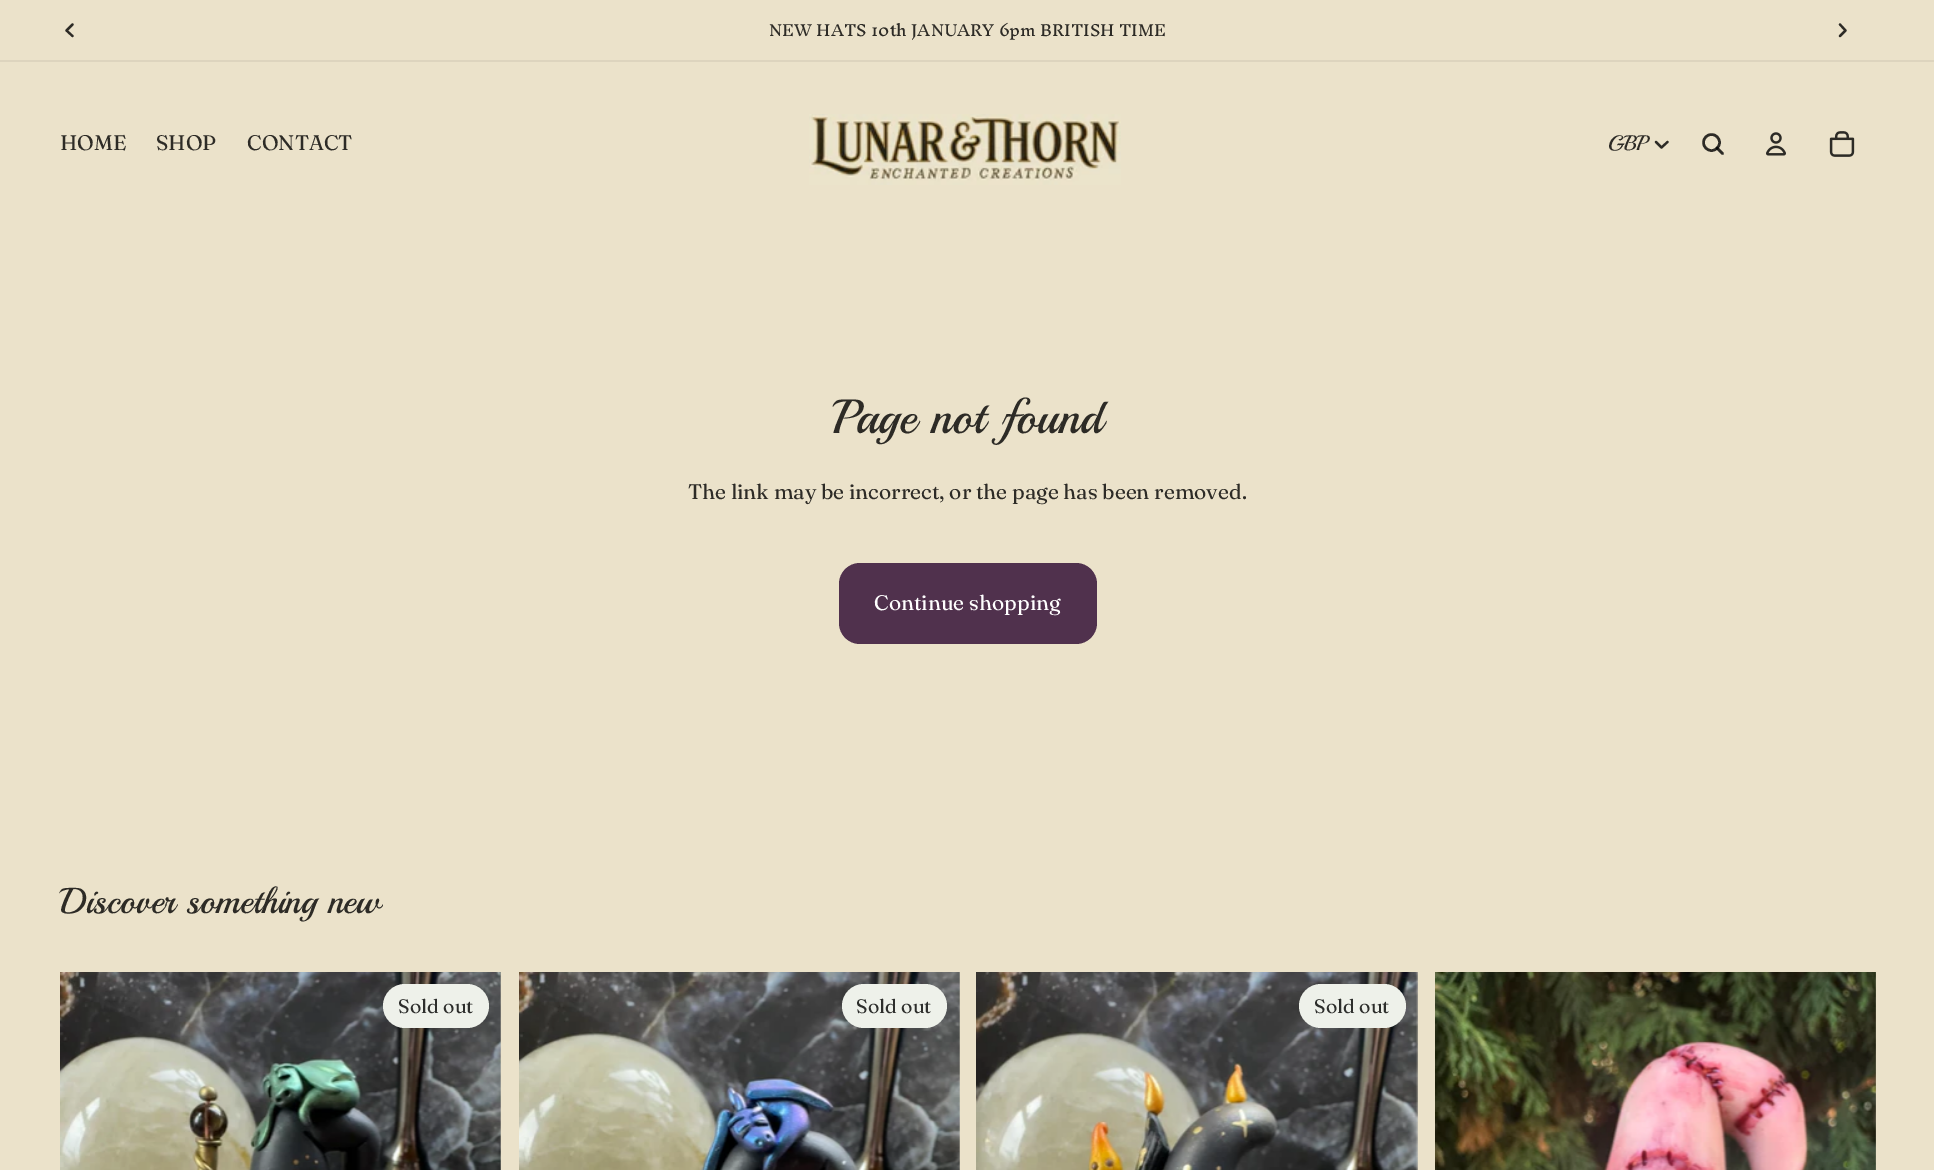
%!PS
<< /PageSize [1934 1170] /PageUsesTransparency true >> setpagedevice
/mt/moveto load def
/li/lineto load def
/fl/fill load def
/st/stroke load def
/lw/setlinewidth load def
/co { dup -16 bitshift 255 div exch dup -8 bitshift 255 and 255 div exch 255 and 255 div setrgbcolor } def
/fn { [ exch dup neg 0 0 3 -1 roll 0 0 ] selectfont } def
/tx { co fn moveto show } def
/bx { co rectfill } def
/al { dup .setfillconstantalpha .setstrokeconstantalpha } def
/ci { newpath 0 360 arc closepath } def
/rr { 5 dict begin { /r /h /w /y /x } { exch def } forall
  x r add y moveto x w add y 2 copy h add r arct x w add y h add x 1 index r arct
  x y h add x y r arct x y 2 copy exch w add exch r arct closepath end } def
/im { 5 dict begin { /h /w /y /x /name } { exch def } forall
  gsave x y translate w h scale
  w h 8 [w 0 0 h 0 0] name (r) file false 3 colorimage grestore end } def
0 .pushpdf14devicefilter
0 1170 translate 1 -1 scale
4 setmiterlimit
0 0 1934 1170 16#EBE2CA bx
0 60 1934 2 16#DDD4BE bx
16#2D2B26 co
2.2 lw
1 setlinecap
1 setlinejoin
72.5 24.5 mt 66.5 30.5 li 72.5 36 li st
1840 24.5 mt 1845.5 30.5 li 1840 36 li st
(media/1.raw) 809 114 312 71 im
1667.5 142 mt 1661.5 147.5 li 1656 142 li st
2.5 lw
0 setlinecap
0 setlinejoin
1711.5 142.5 8 ci st
0.81 al
16#000000 co
1 setlinecap
1 setlinejoin
1717 148 mt 1722.5 153.5 li st
1 al
(media/2.raw) 1766 132 20 24 im
(media/3.raw) 1829 131 26 26 im
16#50314D co
839 563 258 81 21 rr fl
(media/4.raw) 60 972 441 198 im
16#EEF1EA co
383 984 106 44 22 rr fl
(media/5.raw) 519 972 441 198 im
842 984 105 44 22 rr fl
(media/6.raw) 976 972 442 198 im
1299 984 107 44 22 rr fl
(media/7.raw) 1435 972 441 198 im
(NEW HATS 10th JANUARY 6pm BRITISH TIME) 769 36 /InknutAntiqua-Regular 15 16#2D2B26 tx
(HOME) 60 150 /Fraunces-Regular 21 16#2D2B26 tx
(SHOP) 156 150 /Fraunces-Regular 21 16#2D2B26 tx
(CONTACT) 247 150 /Fraunces-Regular 21 16#2D2B26 tx
(GBP) 1608 150 /Playball-Regular 21 16#2D2B26 tx
(Page not found) 832 433 /Playball-Regular 48 16#2D2B26 tx
(The link may be incorrect, or the page has been removed.) 688 499 /Fraunces-Regular 21 16#2D2B26 tx
(Continue shopping) 874 610 /Fraunces-Regular 21 16#FFFFFF tx
(Discover something new) 60 913 /Playball-Regular 36 16#2D2B26 tx
(Sold out) 398 1013 /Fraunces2-Regular 19.5 16#2D2E2C tx
(Sold out) 856 1013 /Fraunces2-Regular 19.5 16#2D2E2C tx
(Sold out) 1314 1013 /Fraunces2-Regular 19.5 16#2D2E2C tx
.poppdf14devicefilter showpage
